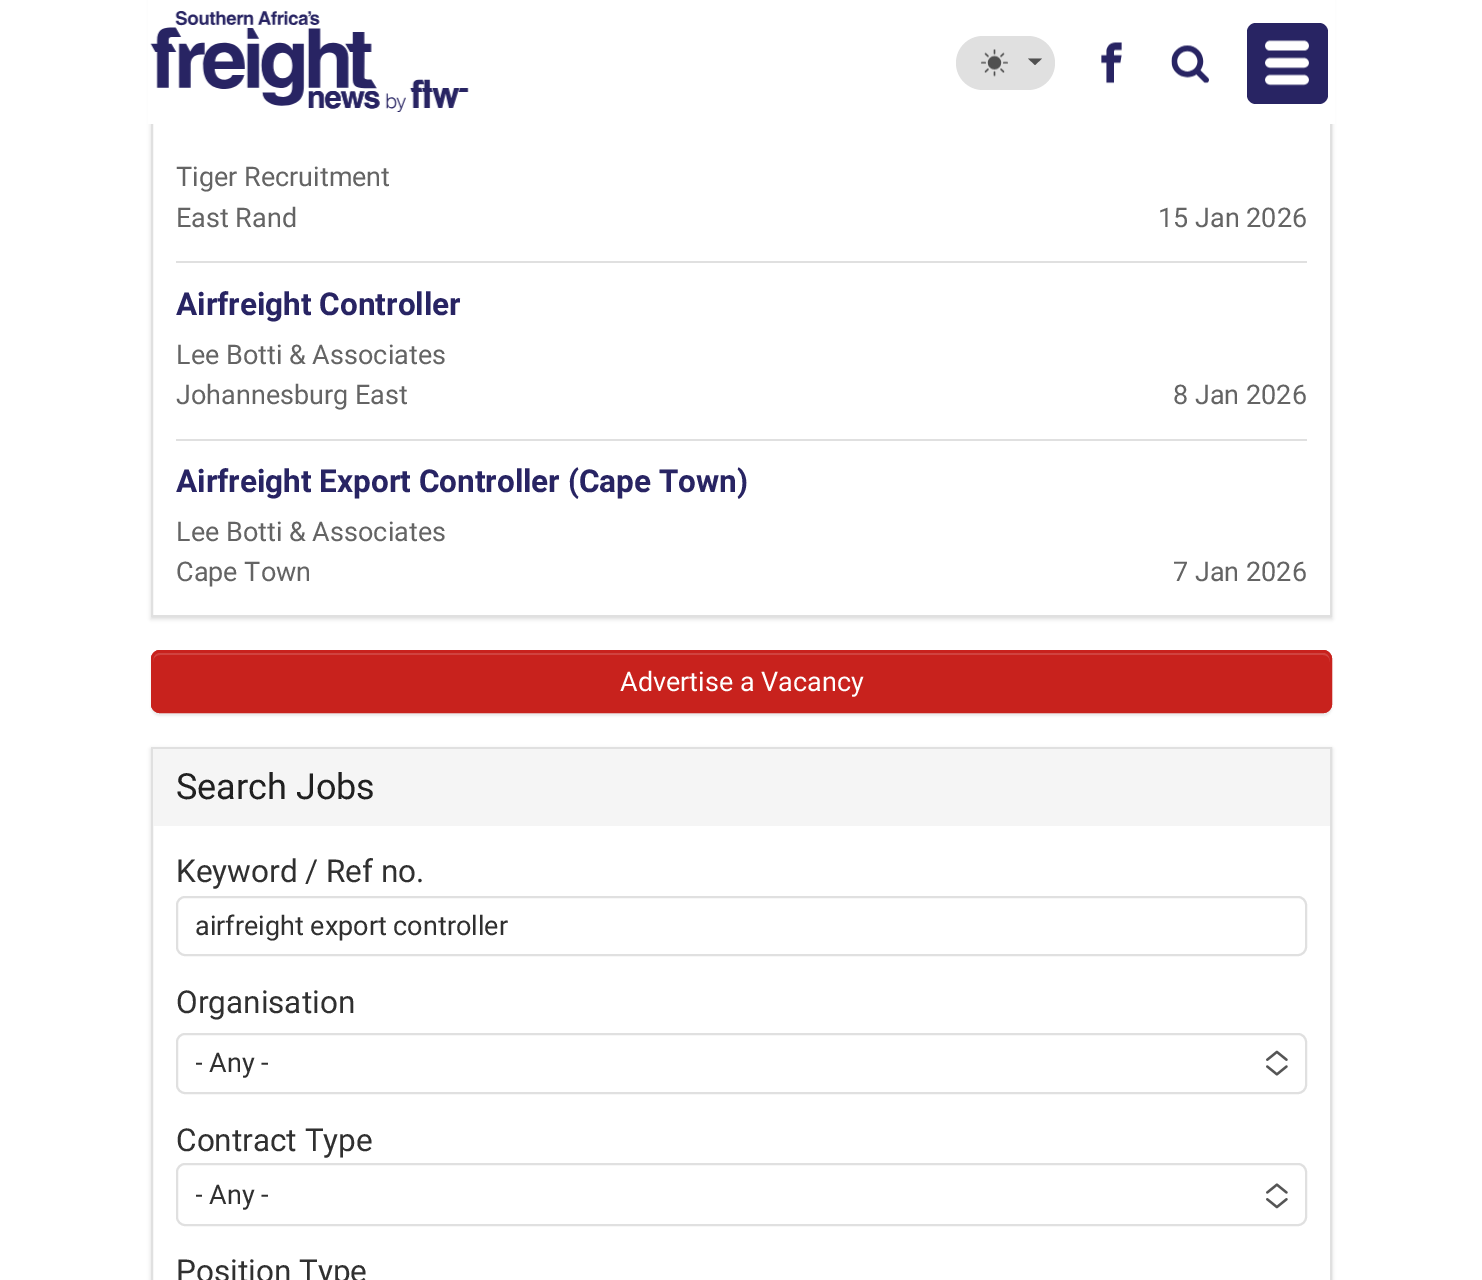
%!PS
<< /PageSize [1482 1280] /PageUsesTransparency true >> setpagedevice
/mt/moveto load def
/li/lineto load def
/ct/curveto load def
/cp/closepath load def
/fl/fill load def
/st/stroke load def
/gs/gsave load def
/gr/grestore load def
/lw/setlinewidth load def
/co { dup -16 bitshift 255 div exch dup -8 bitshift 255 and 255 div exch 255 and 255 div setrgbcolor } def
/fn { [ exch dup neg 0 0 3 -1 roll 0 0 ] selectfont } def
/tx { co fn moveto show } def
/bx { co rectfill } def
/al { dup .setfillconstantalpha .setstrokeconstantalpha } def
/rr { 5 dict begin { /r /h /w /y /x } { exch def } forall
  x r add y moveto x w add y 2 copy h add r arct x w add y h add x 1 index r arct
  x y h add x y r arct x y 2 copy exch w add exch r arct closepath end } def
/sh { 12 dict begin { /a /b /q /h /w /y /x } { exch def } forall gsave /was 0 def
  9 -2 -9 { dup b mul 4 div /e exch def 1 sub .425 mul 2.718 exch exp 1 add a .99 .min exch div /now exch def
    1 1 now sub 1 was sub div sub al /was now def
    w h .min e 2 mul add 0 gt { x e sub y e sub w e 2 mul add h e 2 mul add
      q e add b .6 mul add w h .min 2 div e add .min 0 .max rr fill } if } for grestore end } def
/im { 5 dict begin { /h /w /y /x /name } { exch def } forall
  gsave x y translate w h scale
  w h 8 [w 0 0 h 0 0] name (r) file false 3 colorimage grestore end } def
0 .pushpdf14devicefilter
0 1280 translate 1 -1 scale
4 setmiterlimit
0 0 1482 1280 16#FFFFFF bx
gs
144 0 mt 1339 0 li 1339 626 li 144 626 li cp 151 -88 mt 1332 -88 li 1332 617 li 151 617 li cp eoclip newpath
16#151515 co
151 -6 1181 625 0 2 .15 sh
gr
16#E0E0E0 co
2 lw
152 -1 1179 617 rectstroke
148 0 1187 124 16#FFFFFF bx
(media/1.raw) 150 11 319 101 im
16#E0E0E0 co
956 36 99 54 27 rr fl
(media/2.raw) 981 49 27 28 im
16#505050 co
1028 58.5 mt 1042 58.5 li 1035 65 li cp fl
(media/3.raw) 1101 42 21 42 im
(media/4.raw) 1171 45 38 39 im
16#282463 co
1247 23 81 81 9 rr fl
(media/5.raw) 1265 40 44 46 im
176 261 1131 2 16#E0E0E0 bx
176 439 1131 2 16#E0E0E0 bx
16#151515 co
151 653 1181 63 9 1 .07 sh
16#C8221D co
151 650 1181 63 9 rr fl
16#D0433F co
160 655 mt 1323 655 li 1327 655 1330 658 1330 662 ct 1330 658 1328 653 1323 653 ct 160 653 li 155 653 153 658 153 662 ct 153 658 156 655 160 655 ct cp fl
16#C8221D co
152 651 1179 61 8 rr st
gs
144 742 mt 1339 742 li 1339 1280 li 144 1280 li cp 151 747 mt 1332 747 li 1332 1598 li 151 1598 li cp eoclip newpath
16#151515 co
151 749 1181 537 0 2 .15 sh
gr
16#E0E0E0 co
152 748 1179 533 rectstroke
153 749 1177 77 16#F5F5F5 bx
16#E0E0E0 co
177 897 1129 58 8 rr st
177 1034 1129 59 8 rr st
(media/6.raw) 1266 1050 22 26 im
177 1164 1129 61 8 rr st
(media/7.raw) 1266 1183 22 26 im
(Tiger Recruitment) 176 186 /Roboto-Regular 27 16#646464 tx
(East Rand) 176 227 /Roboto-Regular 27 16#646464 tx
(15 Jan 2026) 1158 227 /Roboto-Regular 27 16#646464 tx
(Airfreight Controller) 176 315 /Roboto-Bold 31.5 16#282463 tx
(Lee Botti & Associates) 176 364 /Roboto-Regular 27 16#646464 tx
(Johannesburg East) 176 404 /Roboto-Regular 27 16#646464 tx
(8 Jan 2026) 1173 404 /Roboto-Regular 27 16#646464 tx
(Airfreight Export Controller \(Cape Town\)) 176 492 /Roboto-Bold 31.5 16#282463 tx
(Lee Botti & Associates) 176 541 /Roboto-Regular 27 16#646464 tx
(Cape Town) 176 581 /Roboto-Regular 27 16#646464 tx
(7 Jan 2026) 1173 581 /Roboto-Regular 27 16#646464 tx
(Advertise a Vacancy) 620 691 /Roboto-Regular 27 16#FFFFFF tx
(Search Jobs) 176 799 /Roboto-Regular 36 16#202020 tx
(Keyword / Ref no.) 176 882 /Roboto-Regular 31.5 16#303030 tx
(airfreight export controller) 195 935 /Roboto-Regular 27 16#303030 tx
(Organisation) 176 1013 /Roboto-Regular 31.5 16#303030 tx
gs
196 1044 1035 41 rectclip
(- Any -) 195 1072 /Roboto-Regular 27 16#303030 tx
gr
(Contract Type) 176 1151 /Roboto-Regular 31.5 16#303030 tx
gs
196 1175 1035 40 rectclip
(- Any -) 195 1204 /Roboto-Regular 27 16#303030 tx
gr
(Position Type) 176 1282 /Roboto-Regular 31.5 16#303030 tx
.poppdf14devicefilter showpage
